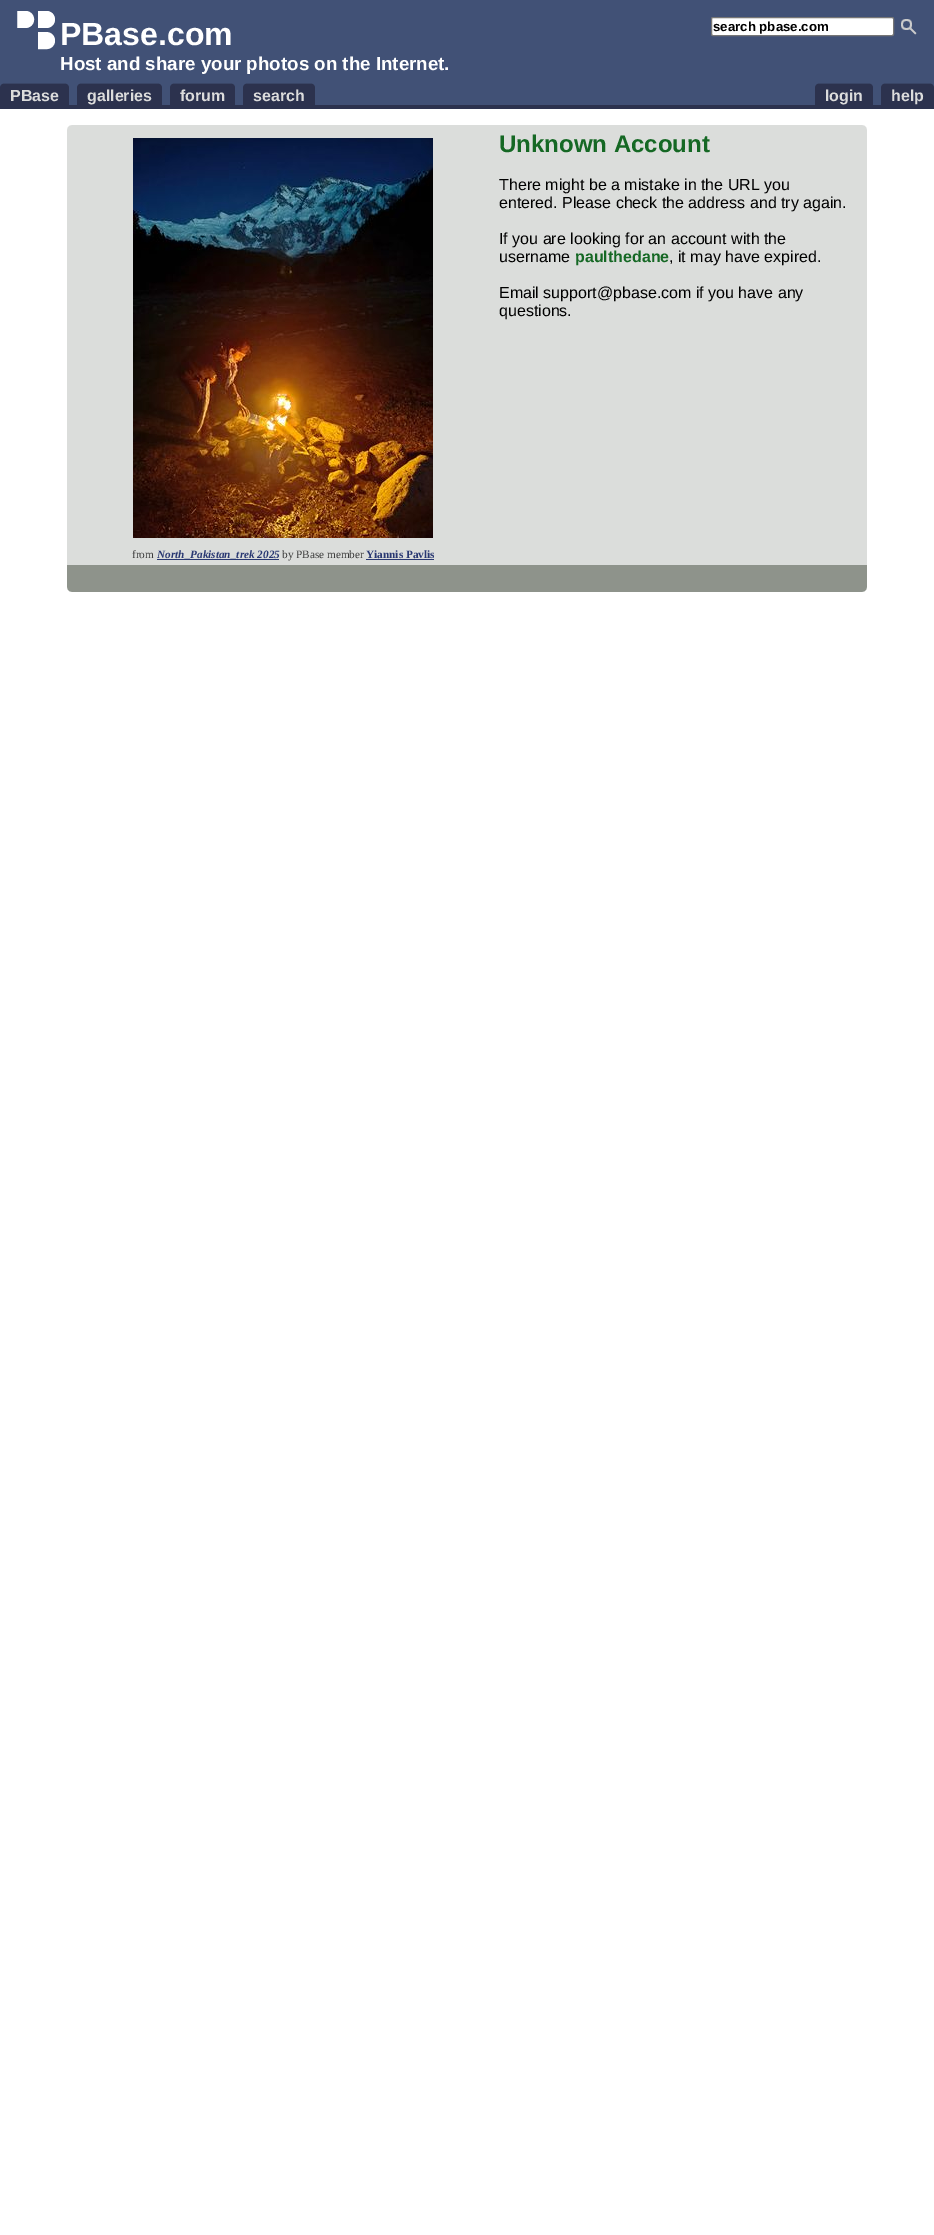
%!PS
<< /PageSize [934 2235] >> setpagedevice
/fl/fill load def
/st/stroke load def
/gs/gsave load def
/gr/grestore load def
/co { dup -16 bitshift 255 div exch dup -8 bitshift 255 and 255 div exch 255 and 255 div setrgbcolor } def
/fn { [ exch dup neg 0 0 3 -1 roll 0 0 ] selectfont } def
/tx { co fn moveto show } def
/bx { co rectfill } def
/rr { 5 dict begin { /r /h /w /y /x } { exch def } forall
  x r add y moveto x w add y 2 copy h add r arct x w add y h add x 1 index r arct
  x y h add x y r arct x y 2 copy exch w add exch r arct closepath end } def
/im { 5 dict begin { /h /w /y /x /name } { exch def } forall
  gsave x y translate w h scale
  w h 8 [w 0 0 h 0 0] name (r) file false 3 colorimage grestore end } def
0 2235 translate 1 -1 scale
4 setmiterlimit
0 0 934 2235 16#FFFFFF bx
0 0 934 105 16#415176 bx
0 105 934 4 16#2C324E bx
(media/1.raw) 17 11 38 39 im
16#FFFFFF co
711.5 17.5 182 18 1.5 rr gs fl gr
16#767676 co
st
(media/2.raw) 901 19 16 16 im
(media/3.raw) 0 83 69 22 im
(media/4.raw) 0 83 3 4 im
(media/5.raw) 77 83 85 22 im
(media/4.raw) 77 83 3 4 im
(media/6.raw) 170 83 65 22 im
(media/4.raw) 170 83 3 4 im
(media/7.raw) 243 83 72 22 im
(media/4.raw) 243 83 3 4 im
(media/8.raw) 815 83 58 22 im
(media/4.raw) 815 83 3 4 im
(media/9.raw) 881 83 53 22 im
(media/4.raw) 881 83 3 4 im
(media/10.raw) 67 125 795 5 im
(media/11.raw) 862 125 5 5 im
67 130 800 435 16#DBDDDB bx
(media/12.raw) 133 138 300 400 im
157 559 122 1 16#293872 bx
366 559 68 1 16#293872 bx
67 565 800 22 16#8E938B bx
(media/13.raw) 67 587 795 5 im
(media/14.raw) 862 587 5 5 im
(PBase.com) 60 45 /LiberationSans-Bold 32 16#FFFFFF tx
(search pbase.com) 713 31 /LiberationSans-Bold 13.25 16#000000 tx
(Host and share your photos on the Internet.) 60 70 /LiberationSans-Bold 18.75 16#FFFFFF tx
(PBase) 10 101 /LiberationSans-Bold 16 16#DCDCDC tx
(galleries) 87 101 /LiberationSans-Bold 16 16#DCDCDC tx
(forum) 180 101 /LiberationSans-Bold 16 16#DCDCDC tx
(search) 253 101 /LiberationSans-Bold 16 16#DCDCDC tx
(login) 825 101 /LiberationSans-Bold 16 16#DCDCDC tx
(help) 891 101 /LiberationSans-Bold 16 16#DCDCDC tx
(Unknown Account) 499 152 /LiberationSans-Bold 24 16#156824 tx
(There might be a mistake in the URL you) 499 190 /LiberationSans-Regular 16 16#000000 tx
(entered. Please check the address and try again.) 499 208 /LiberationSans-Regular 16 16#000000 tx
(If you are looking for an account with the) 499 244 /LiberationSans-Regular 16 16#000000 tx
(username) 499 262 /LiberationSans-Regular 16 16#000000 tx
(paulthedane) 575 262 /LiberationSans-Bold 16 16#156824 tx
(, it may have expired.) 669 262 /LiberationSans-Regular 16 16#000000 tx
(Email support@pbase.com if you have any) 499 298 /LiberationSans-Regular 16 16#000000 tx
(questions.) 499 316 /LiberationSans-Regular 16 16#000000 tx
(from) 132 558 /LiberationSerif-Regular 11.25 16#3D3D3D tx
(North_Pakistan_trek 2025) 157 558 /LiberationSerif-BoldItalic 11.25 16#293872 tx
(by PBase member) 282 558 /LiberationSerif-Regular 11.25 16#3D3D3D tx
(Yiannis Pavlis) 366 558 /LiberationSerif-Bold 11.25 16#293872 tx
showpage
